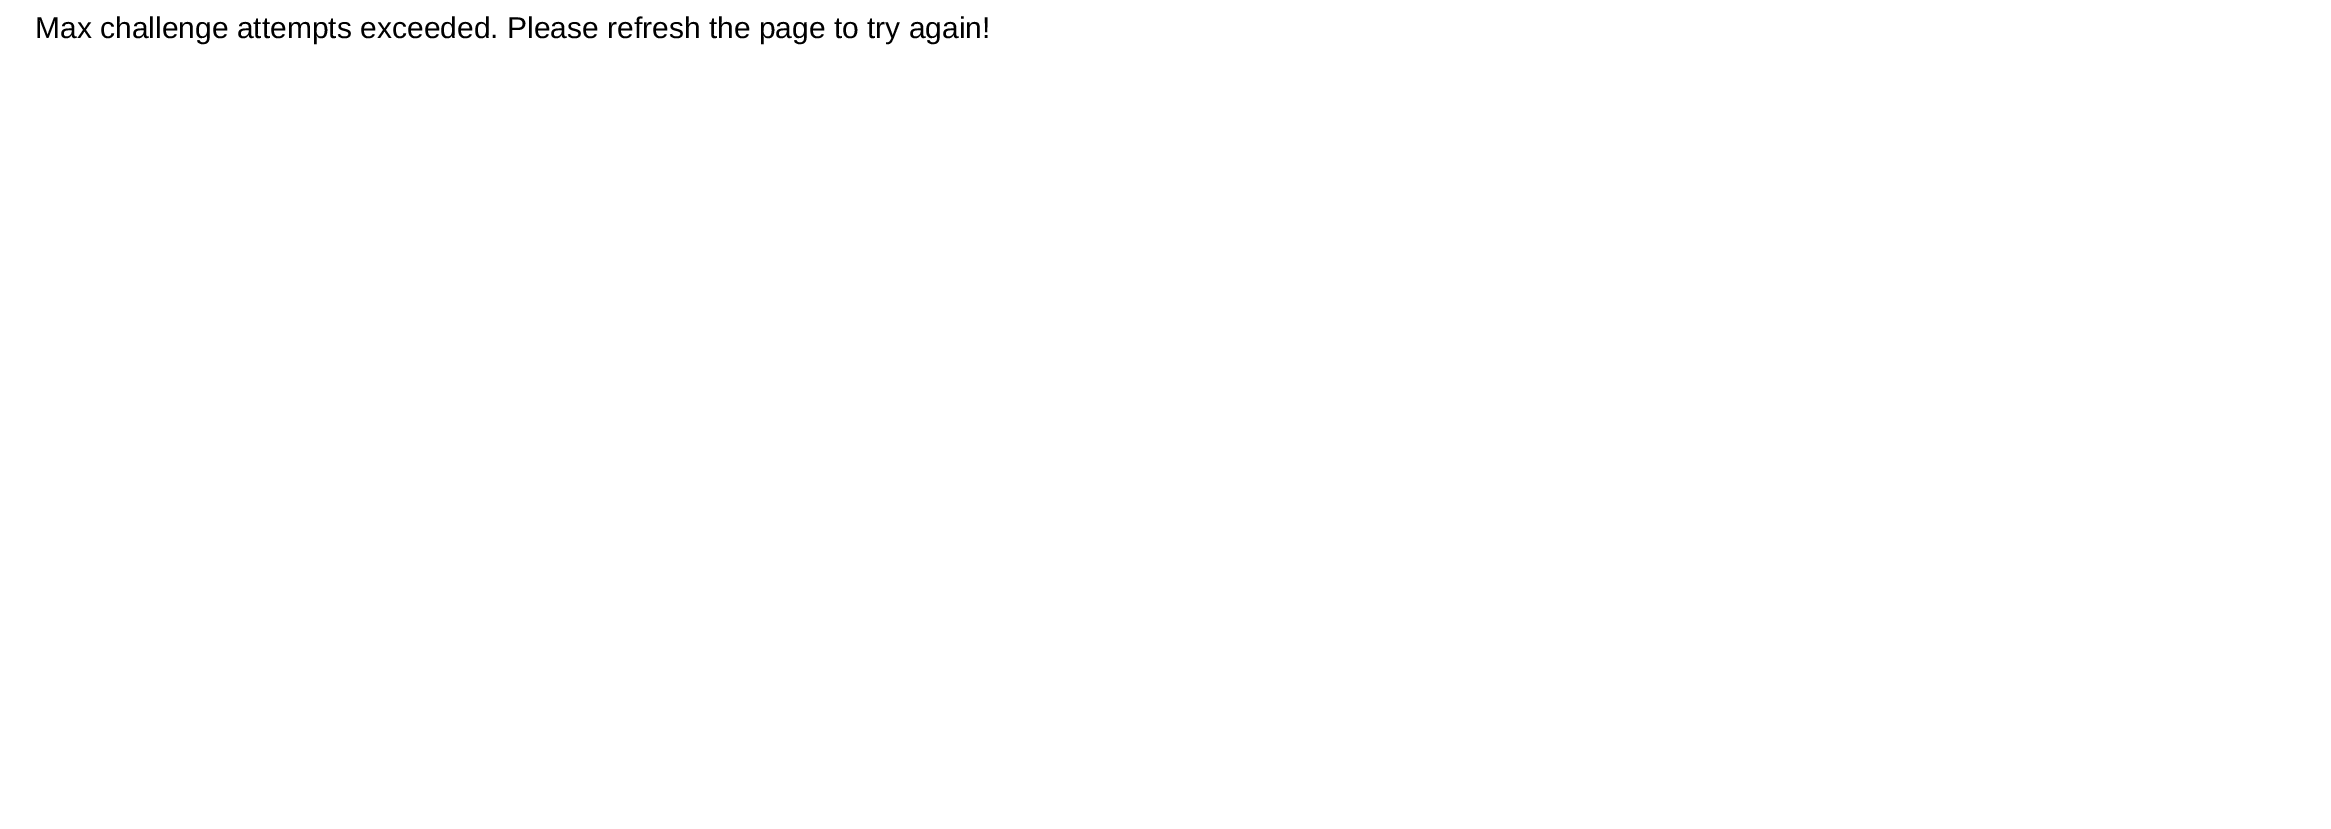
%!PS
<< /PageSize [2331 829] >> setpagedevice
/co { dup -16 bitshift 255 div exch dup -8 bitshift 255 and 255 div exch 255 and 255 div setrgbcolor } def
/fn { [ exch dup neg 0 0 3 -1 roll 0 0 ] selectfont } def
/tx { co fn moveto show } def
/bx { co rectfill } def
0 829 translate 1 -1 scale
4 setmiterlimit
0 0 2331 829 16#FFFFFF bx
(Max challenge attempts exceeded. Please refresh the page to try again!) 35 38 /LiberationSans-Regular 30 16#000000 tx
showpage
